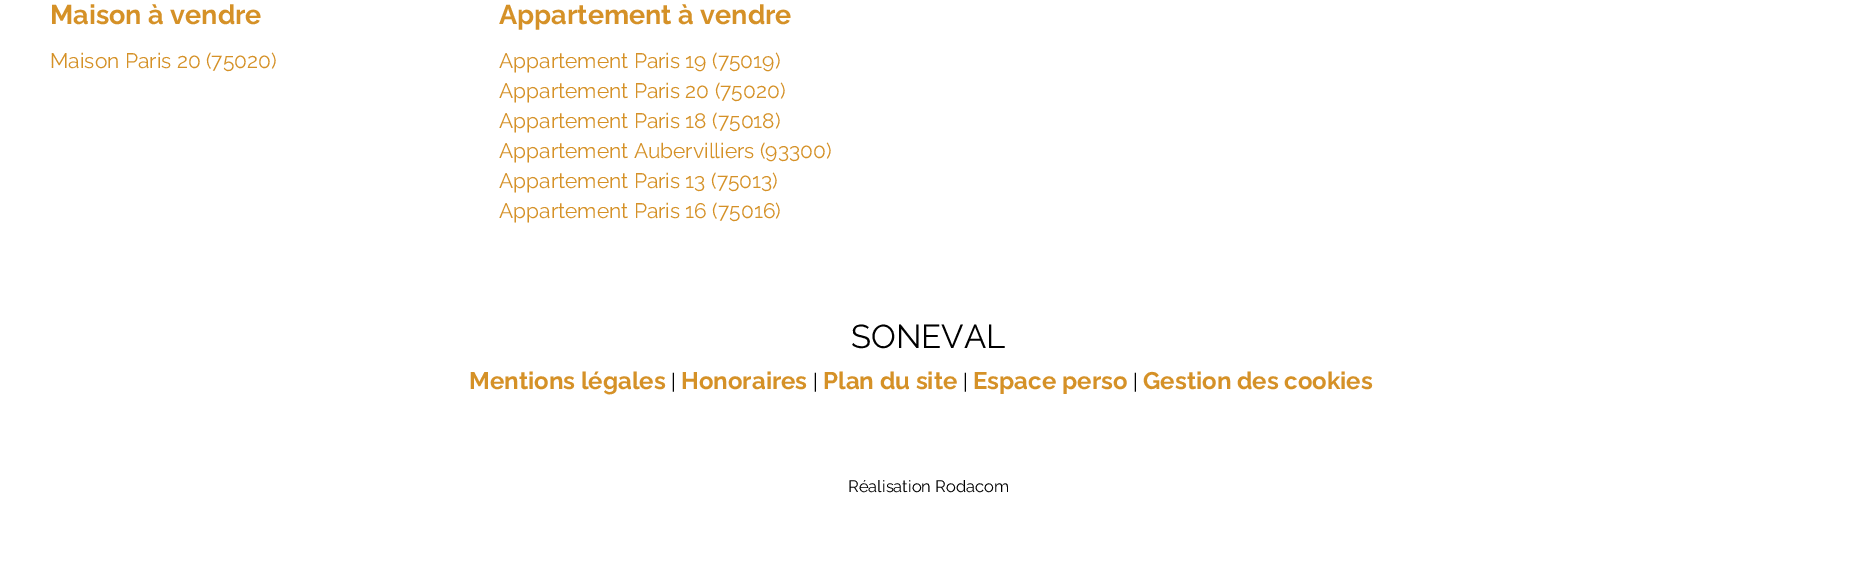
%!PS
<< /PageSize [1857 570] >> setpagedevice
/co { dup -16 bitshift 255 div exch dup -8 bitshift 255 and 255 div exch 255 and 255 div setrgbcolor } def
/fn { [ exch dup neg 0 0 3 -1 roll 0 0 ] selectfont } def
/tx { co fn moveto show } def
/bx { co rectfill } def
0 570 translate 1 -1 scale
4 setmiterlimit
0 0 1857 570 16#FFFFFF bx
(Maison à vendre) 50 24 /Raleway-Bold 27 16#D59127 tx
(Maison Paris 20 \(75020\)) 50 68 /Raleway-Regular 21 16#D59127 tx
(Appartement à vendre) 499 24 /Raleway-Bold 27 16#D59127 tx
(Appartement Paris 19 \(75019\)) 499 68 /Raleway-Regular 21 16#D59127 tx
(Appartement Paris 20 \(75020\)) 499 98 /Raleway-Regular 21 16#D59127 tx
(Appartement Paris 18 \(75018\)) 499 128 /Raleway-Regular 21 16#D59127 tx
(Appartement Aubervilliers \(93300\)) 499 158 /Raleway-Regular 21 16#D59127 tx
(Appartement Paris 13 \(75013\)) 499 188 /Raleway-Regular 21 16#D59127 tx
(Appartement Paris 16 \(75016\)) 499 218 /Raleway-Regular 21 16#D59127 tx
(SONEVAL) 851 348 /Raleway-Regular 33 16#000000 tx
(Mentions légales) 469 389 /Raleway-Bold 24 16#D59127 tx
(|) 671 389 /Raleway-Regular 21 16#000000 tx
(Honoraires) 681 389 /Raleway-Bold 24 16#D59127 tx
(|) 813 389 /Raleway-Regular 21 16#000000 tx
(Plan du site) 823 389 /Raleway-Bold 24 16#D59127 tx
(|) 963 389 /Raleway-Regular 21 16#000000 tx
(Espace perso) 973 389 /Raleway-Bold 24 16#D59127 tx
(|) 1133 389 /Raleway-Regular 21 16#000000 tx
(Gestion des cookies) 1143 389 /Raleway-Bold 24 16#D59127 tx
(Réalisation Rodacom) 848 492 /Raleway-Regular 16.5 16#000000 tx
showpage
